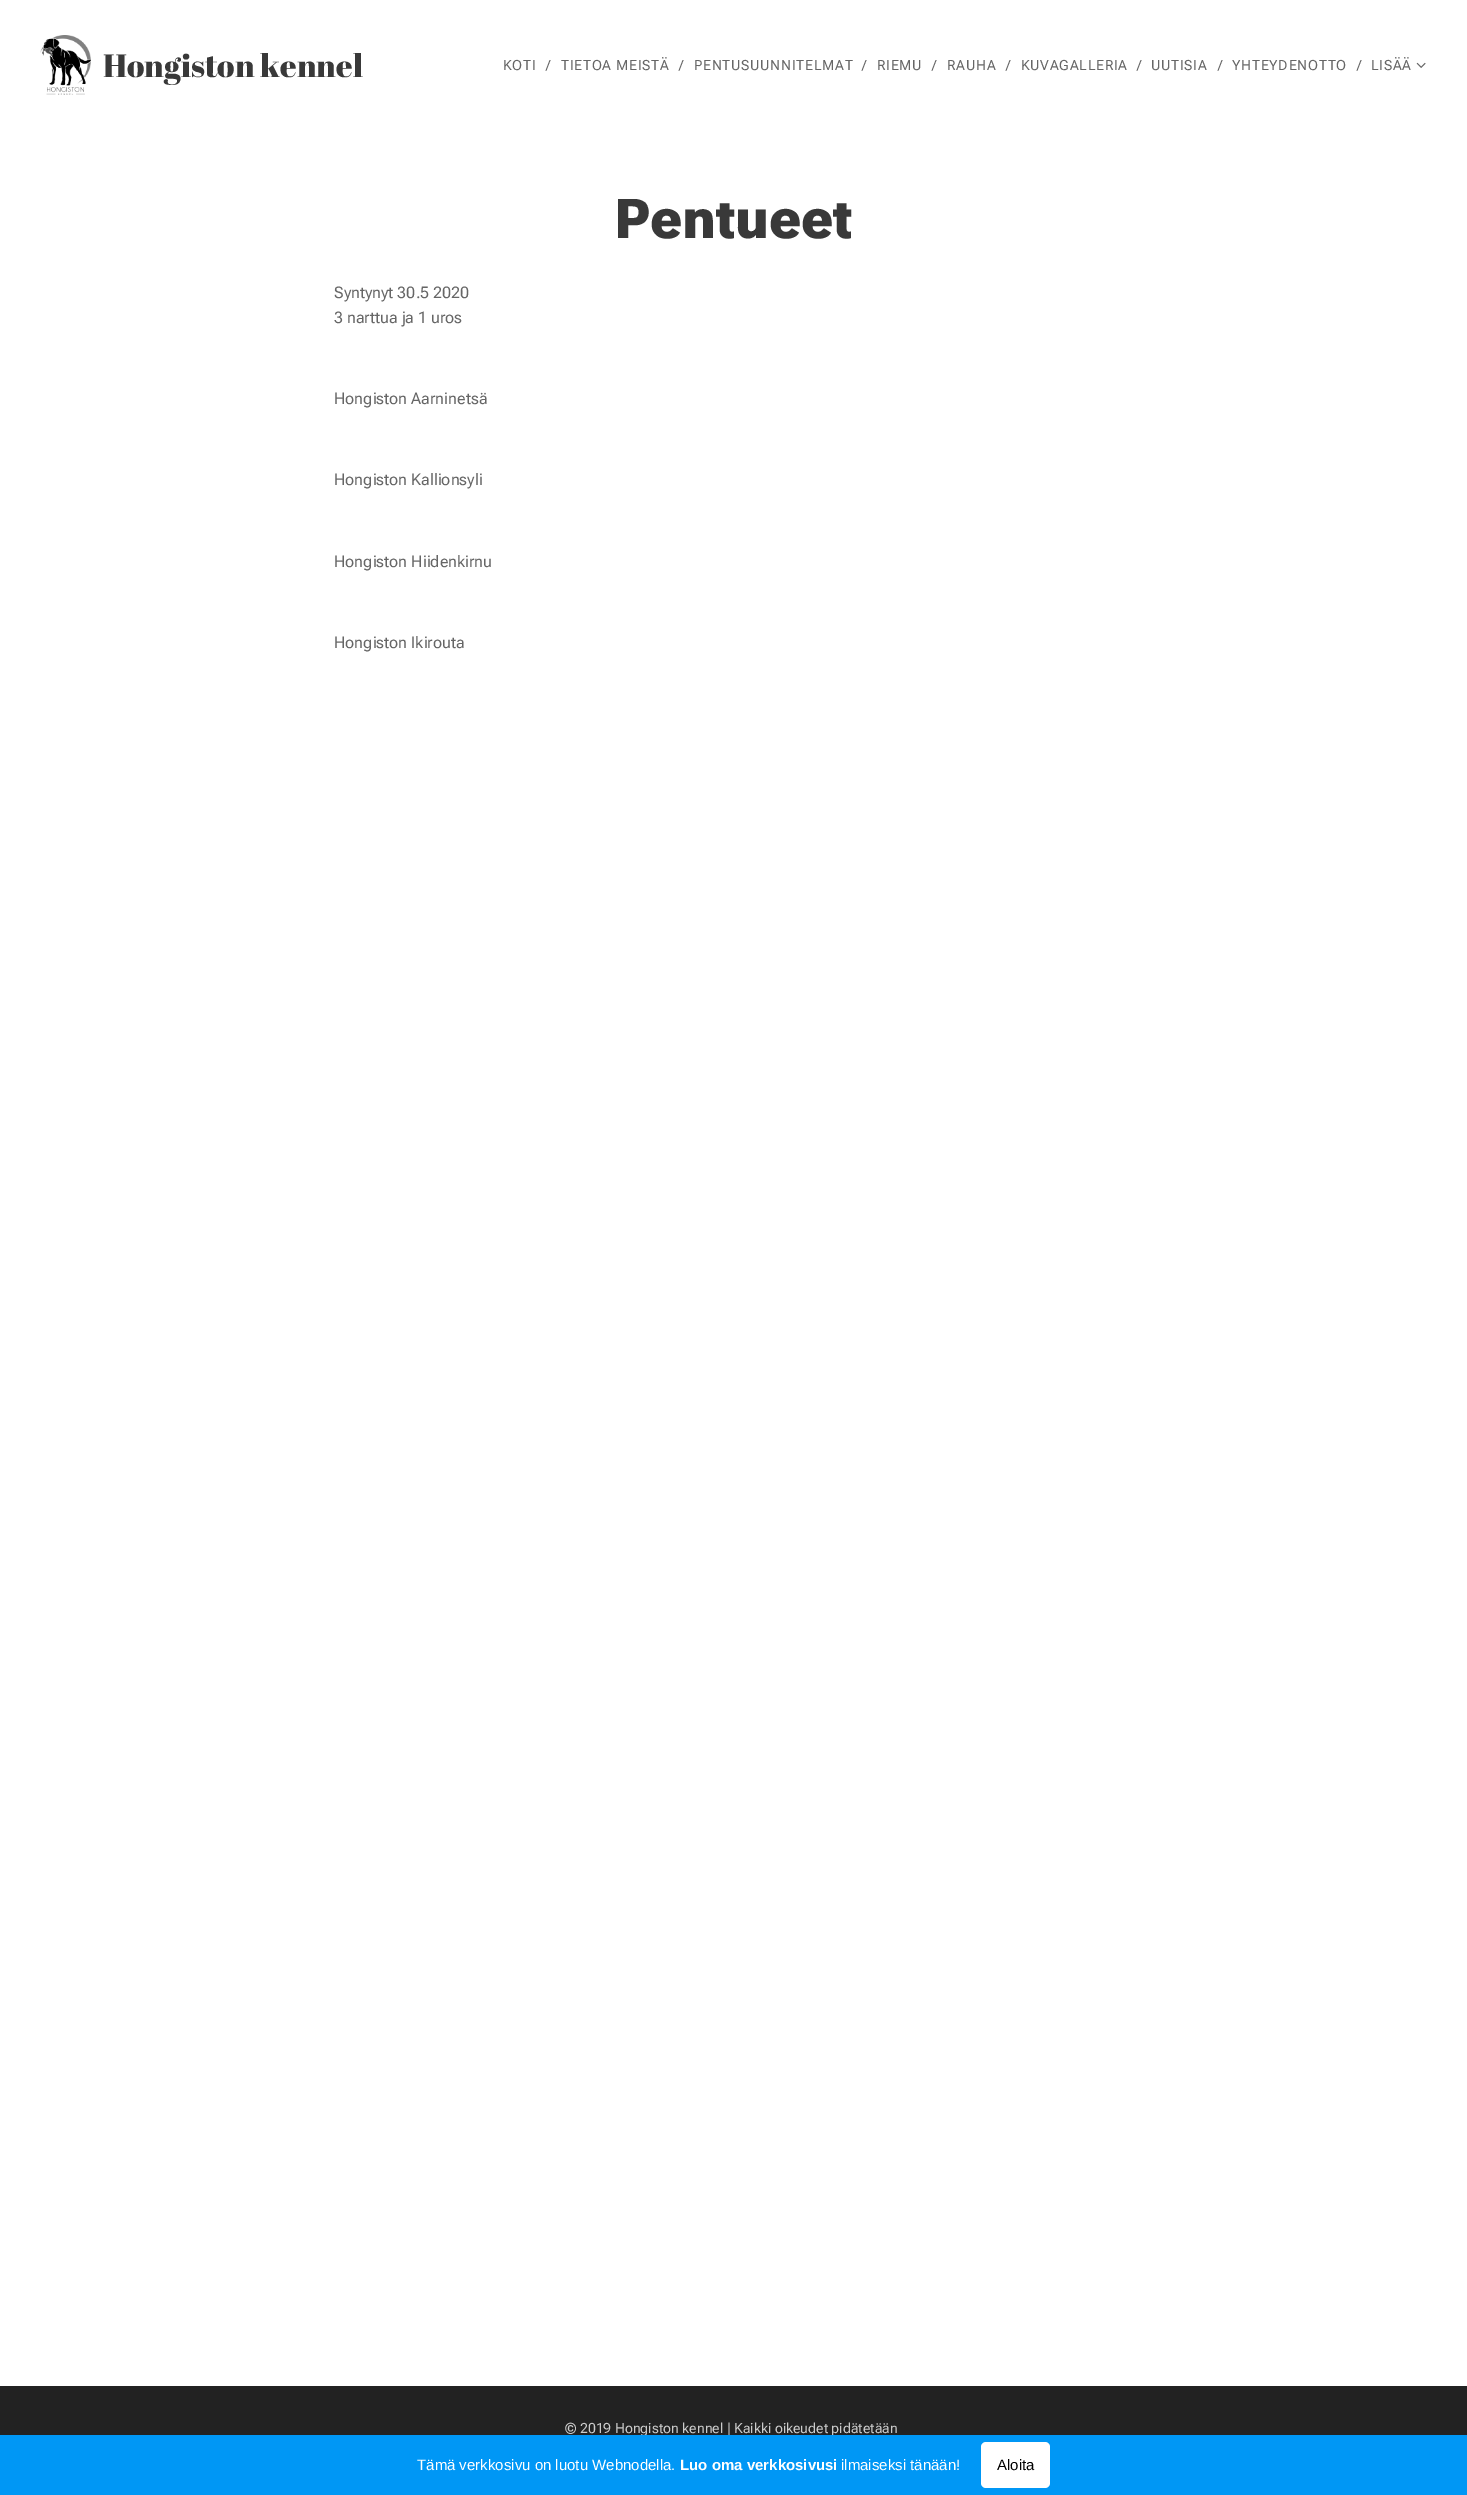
%!PS
<< /PageSize [1467 2495] >> setpagedevice
/mt/moveto load def
/fl/fill load def
/co { dup -16 bitshift 255 div exch dup -8 bitshift 255 and 255 div exch 255 and 255 div setrgbcolor } def
/fn { [ exch dup neg 0 0 3 -1 roll 0 0 ] selectfont } def
/tx { co fn moveto show } def
/bx { co rectfill } def
/rr { 5 dict begin { /r /h /w /y /x } { exch def } forall
  x r add y moveto x w add y 2 copy h add r arct x w add y h add x 1 index r arct
  x y h add x y r arct x y 2 copy exch w add exch r arct closepath end } def
/im { 5 dict begin { /h /w /y /x /name } { exch def } forall
  gsave x y translate w h scale
  w h 8 [w 0 0 h 0 0] name (r) file false 3 colorimage grestore end } def
0 2495 translate 1 -1 scale
4 setmiterlimit
0 0 1467 2495 16#FFFFFF bx
(media/1.raw) 40 35 51 60 im
(media/2.raw) 1416 62 10 6 im
0 2386 1467 49 16#222222 bx
(Hongiston kennel) 103 77 /AbrilFatface-Regular 32 16#393939 tx
/RobotoFlex-Regular 14 fn
16#666666 co
503 70 mt .75 0 (KOTI) ashow
546 70 mt .75 0 (/) ashow
561 70 mt .75 0 (TIETOA MEISTÄ) ashow
679 70 mt .75 0 (/) ashow
694 70 mt .75 0 (PENTUSUUNNITELMAT) ashow
862 70 mt .75 0 (/) ashow
877 70 mt .75 0 (RIEMU) ashow
932 70 mt .75 0 (/) ashow
947 70 mt .75 0 (RAUHA) ashow
1006 70 mt .75 0 (/) ashow
1021 70 mt .75 0 (KUVAGALLERIA) ashow
1137 70 mt .75 0 (/) ashow
1151 70 mt .75 0 (UUTISIA) ashow
1218 70 mt .75 0 (/) ashow
1232 70 mt .75 0 (YHTEYDENOTTO) ashow
1357 70 mt .75 0 (/) ashow
1371 70 mt .75 0 (LISÄÄ) ashow
(Pentueet) 614 238 /RobotoFlex-Black 55 16#393939 tx
(Syntynyt 30.5 2020) 334 298 /RobotoFlex-Regular 16 16#666666 tx
(3 narttua ja 1 uros) 334 323 /RobotoFlex-Regular 16 16#666666 tx
(Hongiston Aarninetsä) 334 404 /RobotoFlex-Regular 16 16#666666 tx
(Hongiston Kallionsyli) 334 485 /RobotoFlex-Regular 16 16#666666 tx
(Hongiston Hiidenkirnu) 334 567 /RobotoFlex-Regular 16 16#666666 tx
(Hongiston Ikirouta) 334 648 /RobotoFlex-Regular 16 16#666666 tx
(© 2019 Hongiston kennel | Kaikki oikeudet pidätetään) 565 2433 /RobotoFlex-Regular 14 16#CCCCCC tx
0 2435 1467 60 16#0097F5 bx
(Tämä verkkosivu on luotu Webnodella.) 417 2470 /LiberationSans-Regular 15 16#FFFFFF tx
(Luo oma verkkosivusi) 680 2470 /LiberationSans-Bold 15 16#FFFFFF tx
(ilmaiseksi tänään!) 841 2470 /LiberationSans-Regular 15 16#FFFFFF tx
981 2442 69 46 5 rr fl
(Aloita) 997 2470 /LiberationSans-Regular 15 16#000000 tx
showpage
